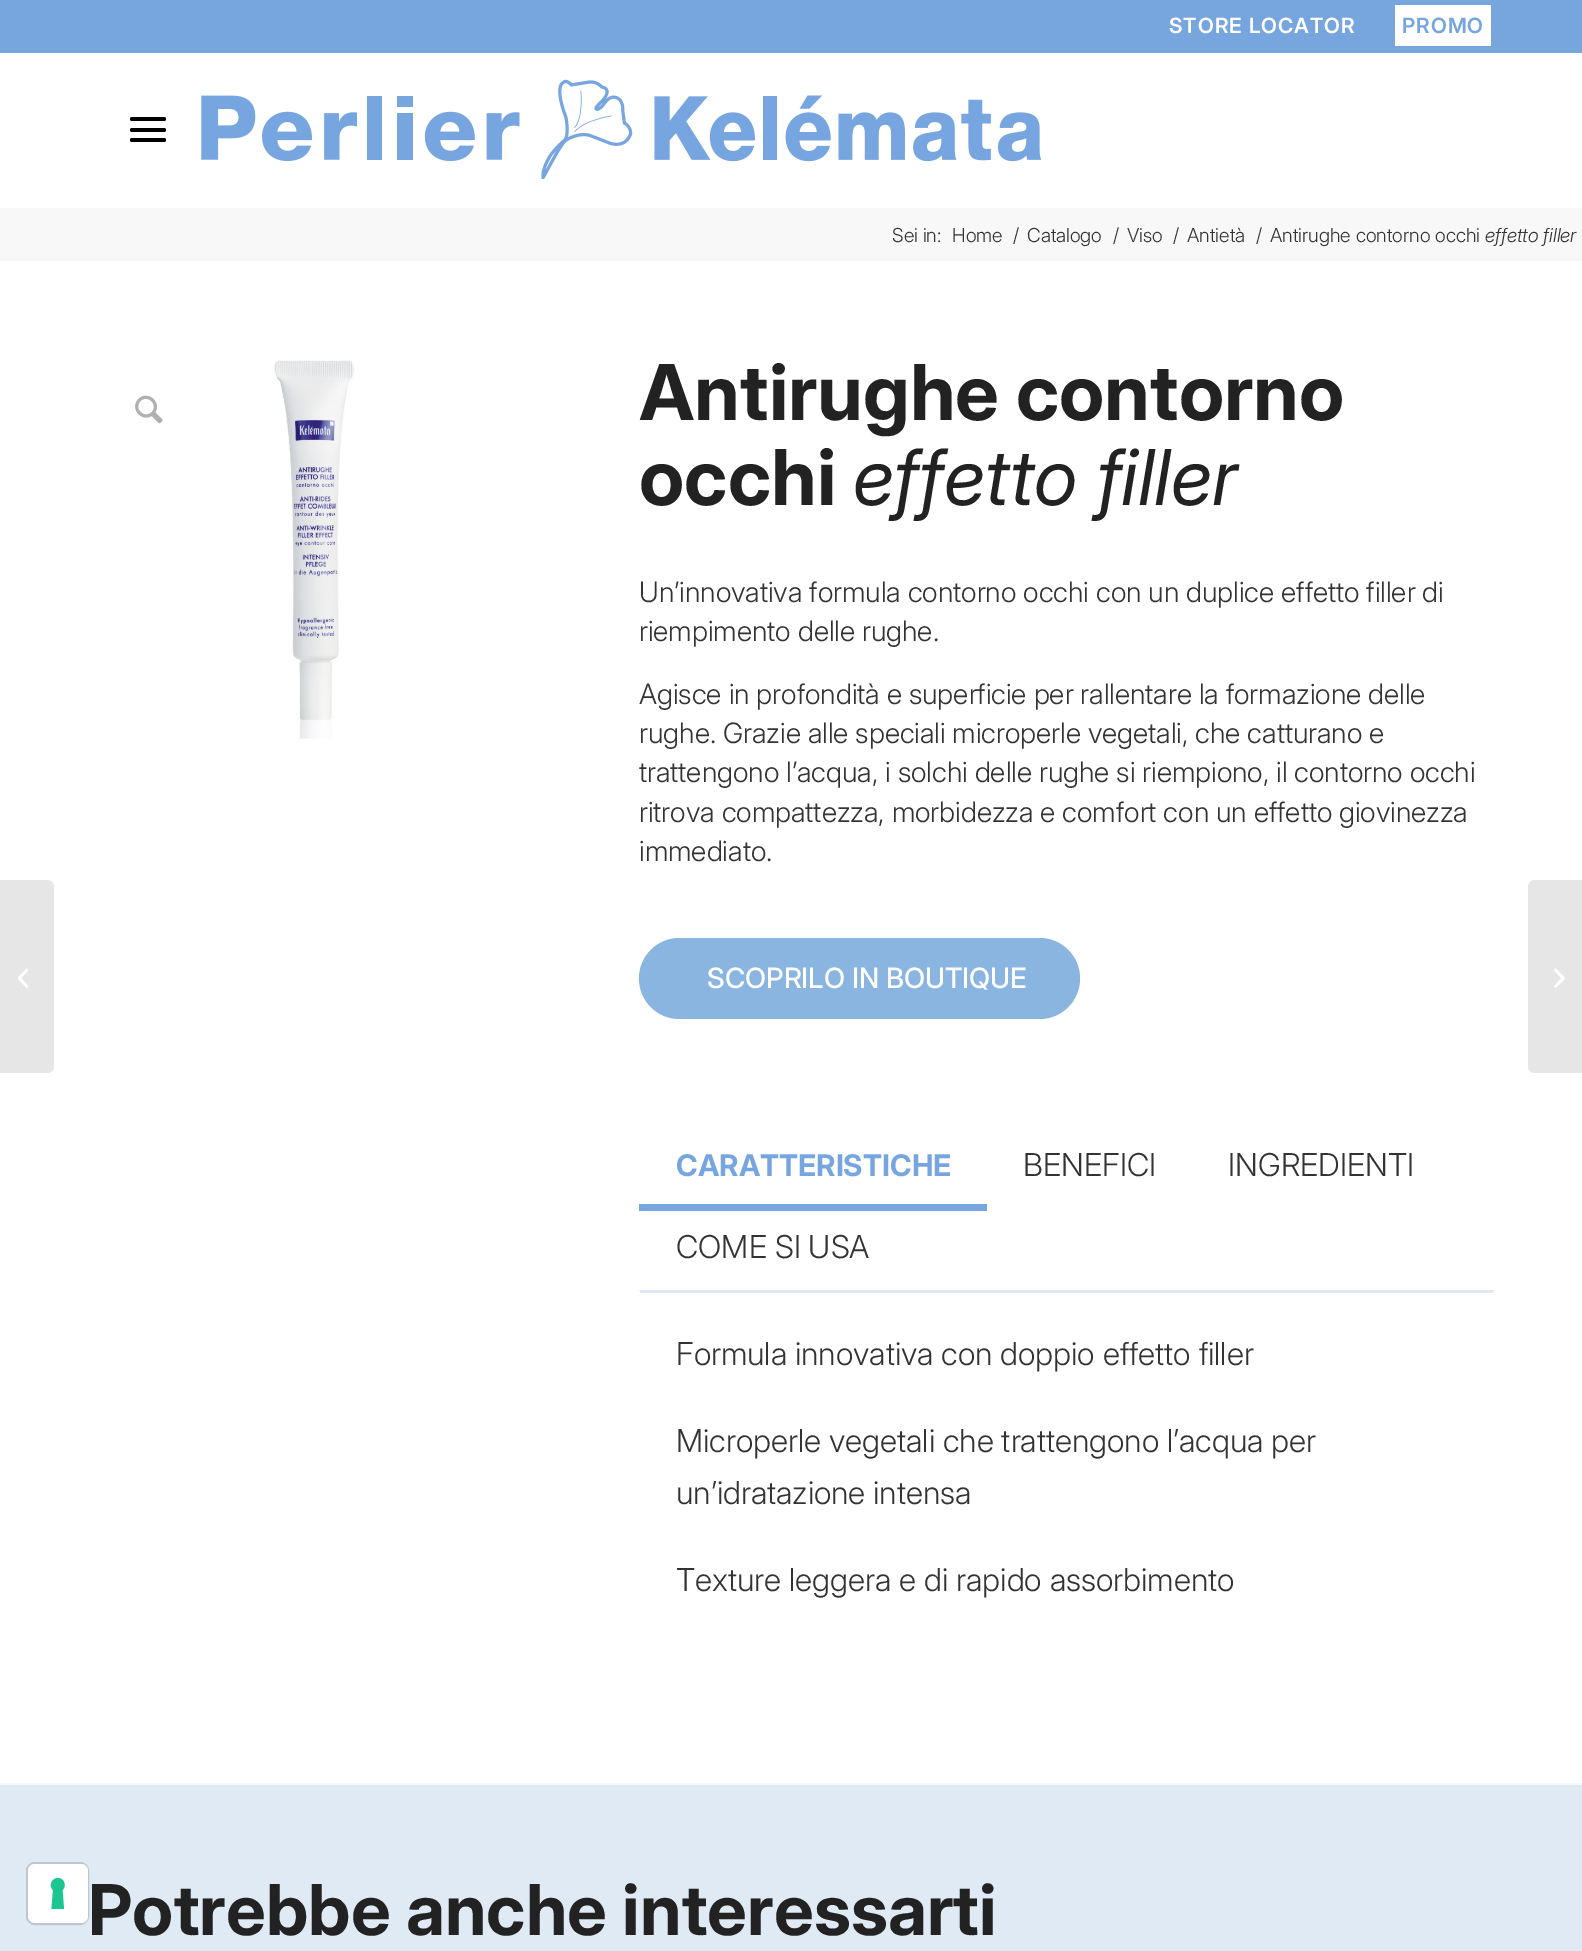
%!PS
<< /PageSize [1582 1951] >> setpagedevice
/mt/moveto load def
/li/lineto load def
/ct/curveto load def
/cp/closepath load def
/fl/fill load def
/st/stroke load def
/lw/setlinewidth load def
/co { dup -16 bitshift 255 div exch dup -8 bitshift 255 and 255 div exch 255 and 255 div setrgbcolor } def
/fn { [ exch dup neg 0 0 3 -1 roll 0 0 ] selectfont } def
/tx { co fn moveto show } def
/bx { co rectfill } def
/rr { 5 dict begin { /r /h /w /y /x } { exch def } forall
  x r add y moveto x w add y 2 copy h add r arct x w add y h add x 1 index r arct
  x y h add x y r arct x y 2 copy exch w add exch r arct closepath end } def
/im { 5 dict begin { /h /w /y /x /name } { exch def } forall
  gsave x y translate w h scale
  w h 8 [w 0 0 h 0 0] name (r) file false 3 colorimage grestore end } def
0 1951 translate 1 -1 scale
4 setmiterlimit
0 0 1582 1951 16#FFFFFF bx
0 1785 1582 166 16#DFEAF4 bx
16#BEC7CF co
2 lw
27 1863 61 61 8 rr st
16#FFFFFF co
28 1864 60 59 7 rr fl
16#1CC691 co
58 1878 mt 64 1878 67 1886 62.5 1890 ct 64 1909 li 51.5 1909 li 53 1890 li 48.5 1886 51.5 1878 58 1878 ct cp eofill
0 0 1582 53 16#77A6DF bx
1395 5 96 41 16#FFFFFF bx
16#000000 co
130 128 36 4 2 rr fl
130 117 36 4 2 rr fl
130 138 36 4 2 rr fl
(media/1.raw) 201 79 840 101 im
16#E6E6E6 co
0 880 mt 47 880 li 51 880 54 883 54 887 ct 54 1066 li 54 1070 51 1073 47 1073 ct 0 1073 li cp fl
(media/2.raw) 18 968 10 20 im
0 208 1582 53 16#F8F8F8 bx
(media/3.raw) 135 395 28 29 im
(media/4.raw) 274 360 80 379 im
16#8AB5E1 co
639 938 441 81 40.5 rr fl
639 1204 348 7 16#77A5DF bx
16#DFEAF4 co
639 1290 mt 640 1293 li 1493 1293 li 1494 1290 li cp fl
16#FFFFFF co
1494 1291 mt 1494 1673 li 1494 1674 1494 1676 1493 1676 ct 1492 1675 li 1492 1675 1493 1674 1493 1673 ct 1493 1293 li cp fl
640 1293 mt 639 1290 li 639 1673 li 639 1674 640 1676 640 1677 ct 642 1675 li 641 1675 640 1674 640 1673 ct cp fl
0 1783 1582 2 16#F8F8F8 bx
16#E6E6E6 co
1535 880 mt 1582 880 li 1582 1073 li 1535 1073 li 1531 1073 1528 1070 1528 1066 ct 1528 887 li 1528 883 1531 880 1535 880 ct cp fl
(media/5.raw) 1554 968 11 20 im
/Inter-SemiBold 21 fn
16#FFFFFF co
1169 33 mt 1 0 (STORE LOCATOR) ashow
16#77A5DF co
1402 33 mt 1 0 (PROMO) ashow
(Sei in:) 892 242 /Inter-Light 19.25 16#333333 tx
(Home) 952 242 /Inter-Light 19.25 16#333333 tx
(/) 1013 242 /Inter-Light 19.25 16#333333 tx
(Catalogo) 1027 242 /Inter-Light 19.25 16#333333 tx
(/) 1113 242 /Inter-Light 19.25 16#333333 tx
(Viso) 1127 242 /Inter-Light 19.25 16#333333 tx
(/) 1173 242 /Inter-Light 19.25 16#333333 tx
(Antietà) 1187 242 /Inter-Light 19.25 16#333333 tx
(/) 1256 242 /Inter-Light 19.25 16#333333 tx
(Antirughe contorno occhi) 1270 242 /Inter-Light 19.25 16#333333 tx
(effetto filler) 1485 242 /Inter-LightItalic 19.25 16#333333 tx
(Antirughe contorno) 639 420 /Inter-Bold 77 16#222222 tx
(occhi) 639 505 /Inter-Bold 77 16#222222 tx
(effetto filler) 853 505 /Inter-Italic 77 16#222222 tx
(Un’innovativa formula contorno occhi con un duplice effetto filler di) 639 602 /Inter-Light 28 16#333333 tx
(riempimento delle rughe.) 639 641 /Inter-Light 28 16#333333 tx
(Agisce in profondità e superficie per rallentare la formazione delle) 639 704 /Inter-Light 28 16#333333 tx
(rughe. Grazie alle speciali microperle vegetali, che catturano e) 639 743 /Inter-Light 28 16#333333 tx
(trattengono l’acqua, i solchi delle rughe si riempiono, il contorno occhi) 639 782 /Inter-Light 28 16#333333 tx
(ritrova compattezza, morbidezza e comfort con un effetto giovinezza) 639 822 /Inter-Light 28 16#333333 tx
(immediato.) 639 861 /Inter-Light 28 16#333333 tx
(SCOPRILO IN BOUTIQUE) 707 988 /Inter-Medium 28 16#FFFFFF tx
(CARATTERISTICHE) 676 1176 /Inter-Bold 29.75 16#77A5DF tx
(BENEFICI) 1023 1176 /Inter-Light 31.5 16#333333 tx
(INGREDIENTI) 1228 1176 /Inter-Light 31.5 16#333333 tx
(COME SI USA) 676 1258 /Inter-Light 31.5 16#333333 tx
(Formula innovativa con doppio effetto filler) 676 1365 /Inter-Light 31.5 16#333333 tx
(Microperle vegetali che trattengono l’acqua per) 676 1452 /Inter-Light 31.5 16#333333 tx
(un’idratazione intensa) 676 1504 /Inter-Light 31.5 16#333333 tx
(Texture leggera e di rapido assorbimento) 676 1591 /Inter-Light 31.5 16#333333 tx
(Potrebbe anche interessarti) 88 1935 /Inter-Bold 70 16#222222 tx
showpage
